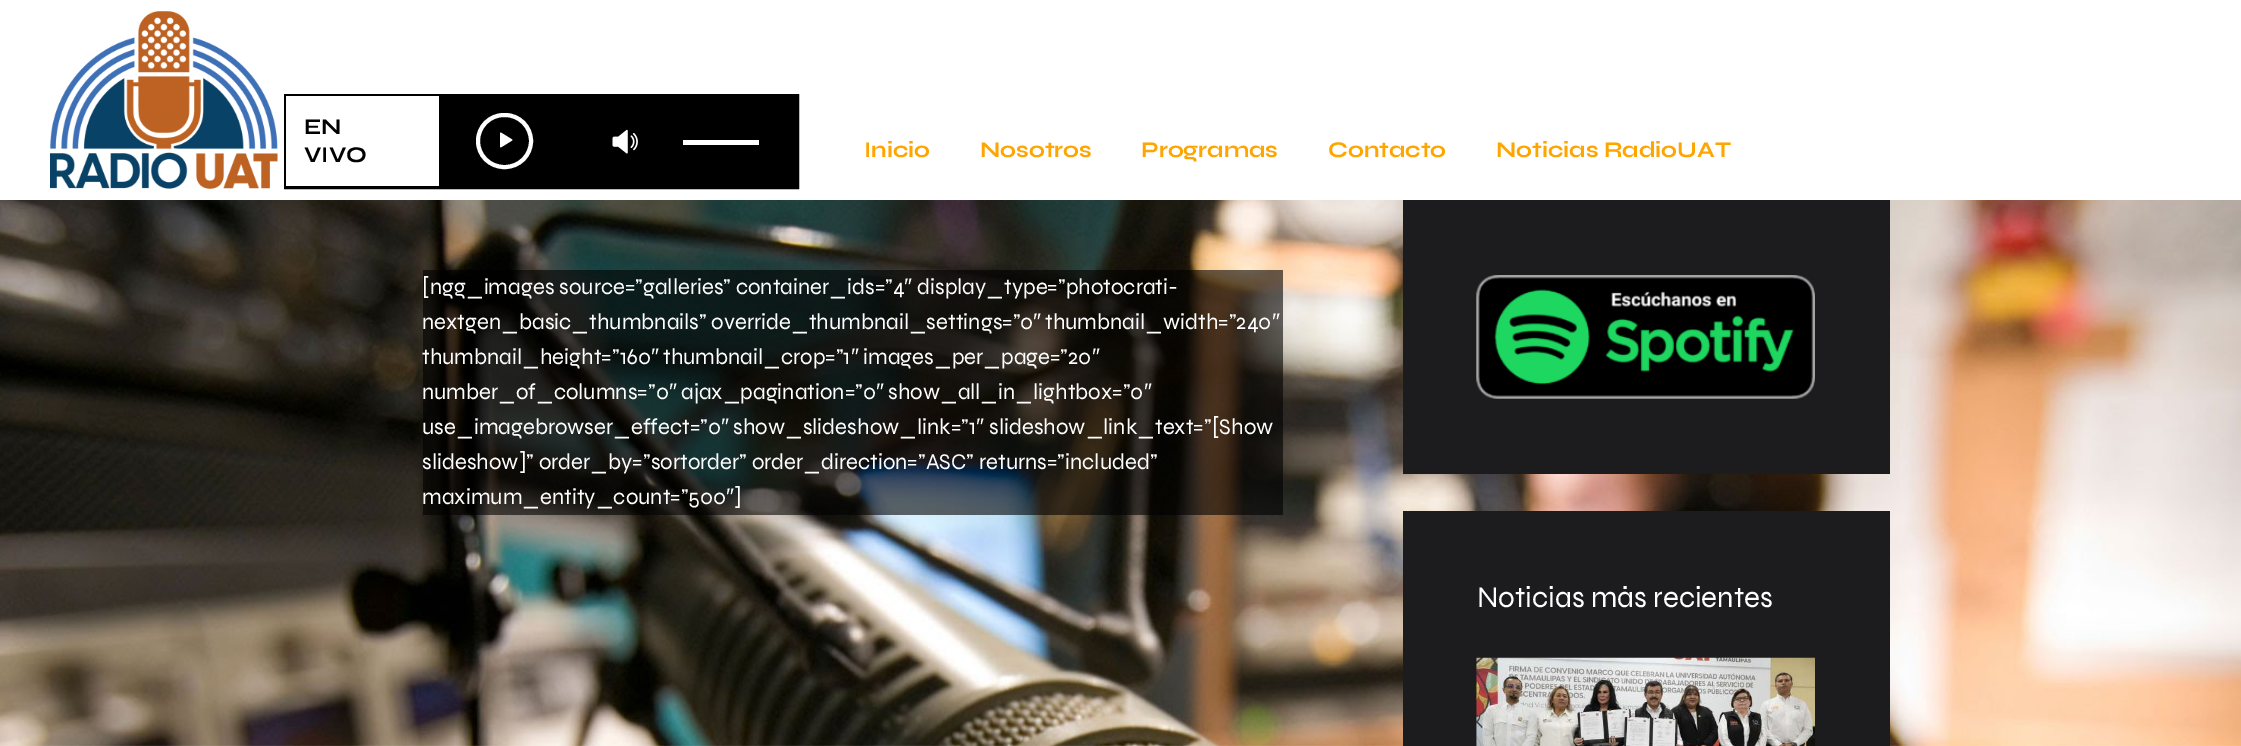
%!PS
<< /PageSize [2241 746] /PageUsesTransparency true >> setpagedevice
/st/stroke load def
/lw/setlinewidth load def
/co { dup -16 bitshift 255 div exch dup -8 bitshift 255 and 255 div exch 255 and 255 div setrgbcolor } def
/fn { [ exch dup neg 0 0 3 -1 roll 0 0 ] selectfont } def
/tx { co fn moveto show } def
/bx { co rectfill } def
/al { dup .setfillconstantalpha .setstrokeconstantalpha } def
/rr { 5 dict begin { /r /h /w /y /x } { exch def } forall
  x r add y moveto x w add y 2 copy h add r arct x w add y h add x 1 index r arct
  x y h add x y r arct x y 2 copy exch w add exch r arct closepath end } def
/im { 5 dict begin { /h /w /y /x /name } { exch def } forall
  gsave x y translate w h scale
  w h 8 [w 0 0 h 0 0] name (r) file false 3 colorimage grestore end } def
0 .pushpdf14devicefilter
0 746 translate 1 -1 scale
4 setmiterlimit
0 0 2241 746 16#FFFFFF bx
(media/1.raw) 0 200 2241 546 im
(media/2.raw) 50 11 228 178 im
16#000000 co
3 lw
285.5 95.5 512 92 rectstroke
439 97 357 89 16#000000 bx
286 96 153 90 16#FFFFFF bx
4 lw
478 115 53 52 26 rr st
(media/3.raw) 500 132 13 16 im
(media/4.raw) 612 129 26 25 im
683 140 76 5 16#FFFFFF bx
0.6 al
423 270 860 245 16#000000 bx
1 al
1403 200 487 274 16#1C1C1F bx
(media/5.raw) 1476 275 339 124 im
1403 511 487 235 16#1C1C1F bx
(media/6.raw) 1476 657 339 89 im
(EN) 304 134 /Syne-Bold 22.5 16#000000 tx
(VIVO) 304 162 /Syne-Bold 22.5 16#000000 tx
(Inicio) 864 157 /Syne-Bold 22.5 16#FFA500 tx
(Nosotros) 980 157 /Syne-Bold 22.5 16#FFA500 tx
(Programas) 1141 157 /Syne-Bold 22.5 16#FFA500 tx
(Contacto) 1328 157 /Syne-Bold 22.5 16#FFA500 tx
(Noticias RadioUAT) 1496 157 /Syne-Bold 22.5 16#FFA500 tx
([ngg_images source=”galleries” container_ids=”4) 422 294 /Syne-Regular 22.5 16#FFFFFF tx
(″) 904 294 /LiberationSans-Regular 22.5 16#FFFFFF tx
(display_type=”photocrati-) 917 294 /Syne-Regular 22.5 16#FFFFFF tx
(nextgen_basic_thumbnails” override_thumbnail_settings=”0) 422 329 /Syne-Regular 22.5 16#FFFFFF tx
(″) 1033 329 /LiberationSans-Regular 22.5 16#FFFFFF tx
(thumbnail_width=”240) 1045 329 /Syne-Regular 22.5 16#FFFFFF tx
(″) 1272 329 /LiberationSans-Regular 22.5 16#FFFFFF tx
(thumbnail_height=”160) 422 364 /Syne-Regular 22.5 16#FFFFFF tx
(″) 651 364 /LiberationSans-Regular 22.5 16#FFFFFF tx
(thumbnail_crop=”1) 663 364 /Syne-Regular 22.5 16#FFFFFF tx
(″) 851 364 /LiberationSans-Regular 22.5 16#FFFFFF tx
(images_per_page=”20) 863 364 /Syne-Regular 22.5 16#FFFFFF tx
(″) 1092 364 /LiberationSans-Regular 22.5 16#FFFFFF tx
(number_of_columns=”0) 422 399 /Syne-Regular 22.5 16#FFFFFF tx
(″) 669 399 /LiberationSans-Regular 22.5 16#FFFFFF tx
(ajax_pagination=”0) 681 399 /Syne-Regular 22.5 16#FFFFFF tx
(″) 876 399 /LiberationSans-Regular 22.5 16#FFFFFF tx
(show_all_in_lightbox=”0) 888 399 /Syne-Regular 22.5 16#FFFFFF tx
(″) 1144 399 /LiberationSans-Regular 22.5 16#FFFFFF tx
(use_imagebrowser_effect=”0) 422 434 /Syne-Regular 22.5 16#FFFFFF tx
(″) 721 434 /LiberationSans-Regular 22.5 16#FFFFFF tx
(show_slideshow_link=”1) 733 434 /Syne-Regular 22.5 16#FFFFFF tx
(″) 976 434 /LiberationSans-Regular 22.5 16#FFFFFF tx
(slideshow_link_text=”[Show) 989 434 /Syne-Regular 22.5 16#FFFFFF tx
(slideshow]” order_by=”sortorder” order_direction=”ASC” returns=”included”) 422 469 /Syne-Regular 22.5 16#FFFFFF tx
(maximum_entity_count=”500) 422 504 /Syne-Regular 22.5 16#FFFFFF tx
(″) 726 504 /LiberationSans-Regular 22.5 16#FFFFFF tx
(]) 734 504 /Syne-Regular 22.5 16#FFFFFF tx
(Noticias más recientes) 1477 607 /Syne-Regular 30 16#FFFFFF tx
.poppdf14devicefilter showpage
